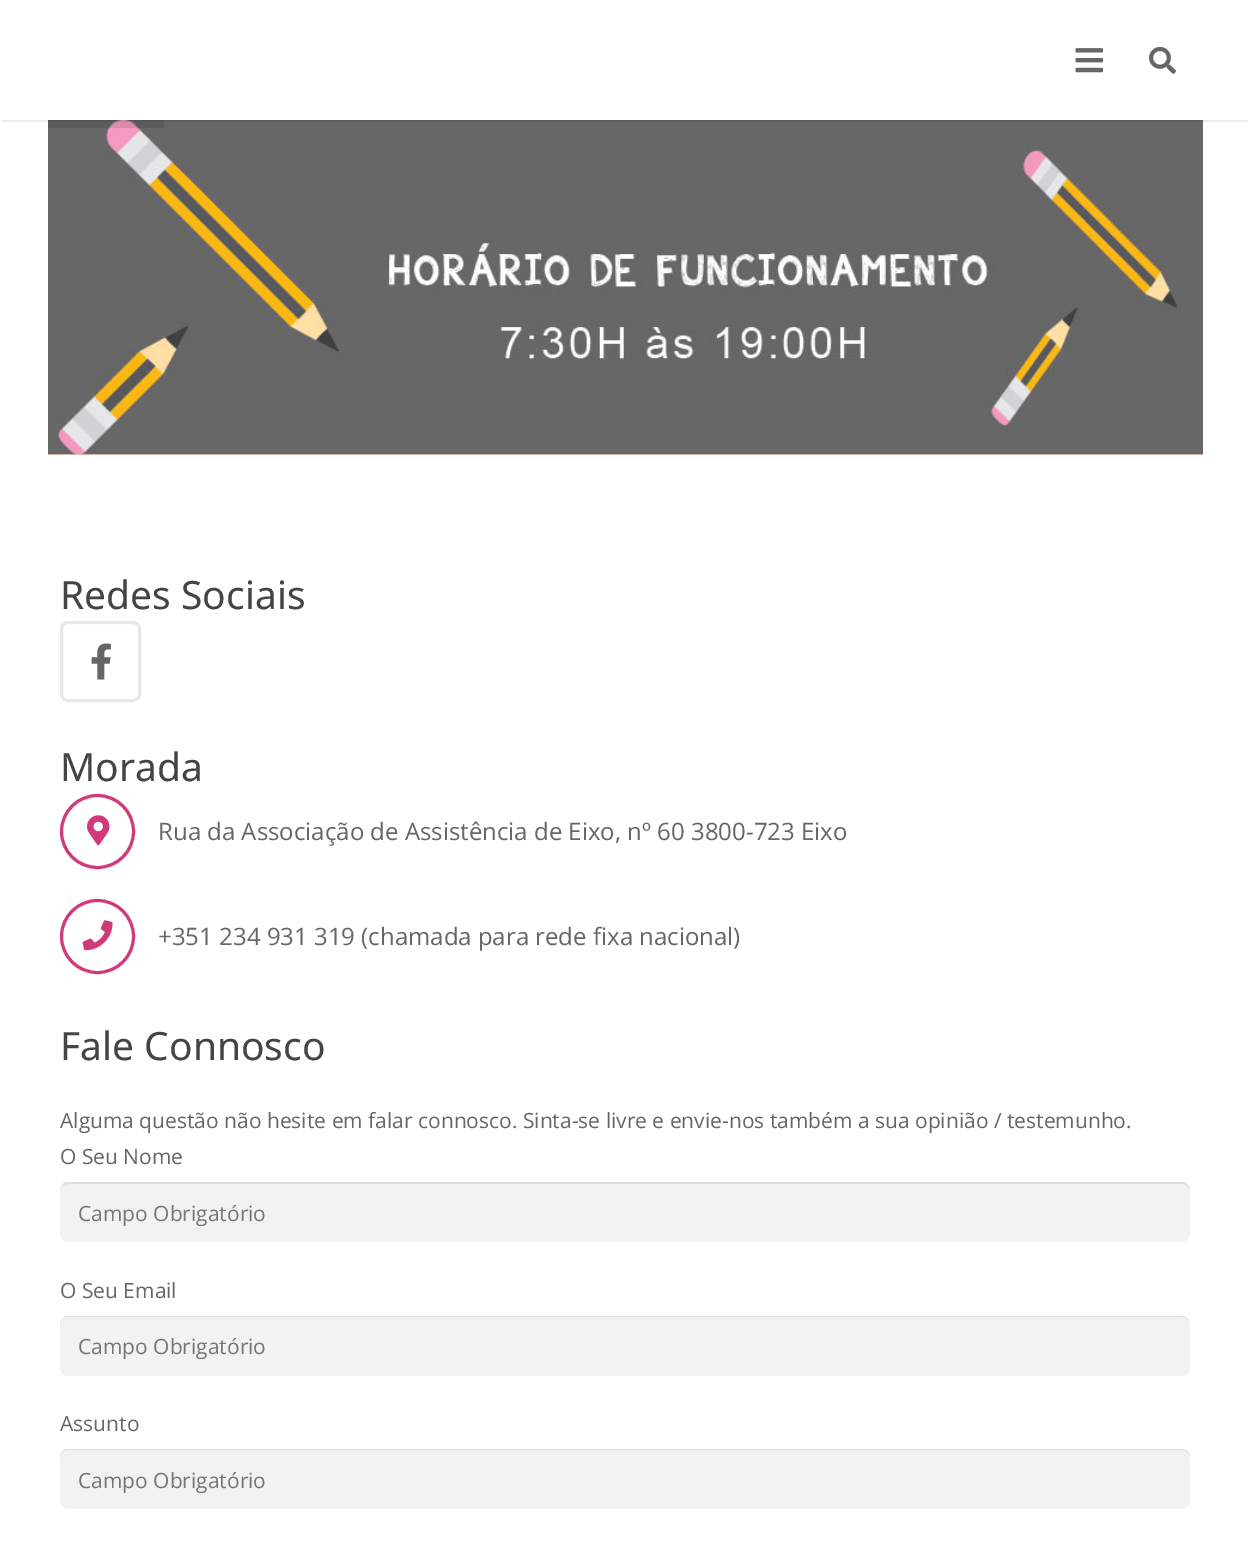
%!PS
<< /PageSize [1249 1556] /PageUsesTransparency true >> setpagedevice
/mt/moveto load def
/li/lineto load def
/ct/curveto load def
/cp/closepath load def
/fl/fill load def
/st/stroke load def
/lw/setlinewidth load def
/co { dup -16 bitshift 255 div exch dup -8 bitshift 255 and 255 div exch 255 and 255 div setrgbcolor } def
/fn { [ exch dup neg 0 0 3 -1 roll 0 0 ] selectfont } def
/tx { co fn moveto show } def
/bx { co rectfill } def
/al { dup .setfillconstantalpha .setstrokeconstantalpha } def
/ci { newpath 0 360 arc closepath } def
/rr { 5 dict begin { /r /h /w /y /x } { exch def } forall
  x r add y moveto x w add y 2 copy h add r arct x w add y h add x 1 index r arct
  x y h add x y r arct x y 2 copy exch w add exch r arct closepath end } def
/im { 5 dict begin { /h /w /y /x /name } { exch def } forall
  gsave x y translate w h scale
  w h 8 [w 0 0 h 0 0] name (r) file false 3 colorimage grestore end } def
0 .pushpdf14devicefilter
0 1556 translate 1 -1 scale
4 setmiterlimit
0 0 1249 1556 16#FFFFFF bx
48 454 1155 1 16#FAC5BB bx
(media/3.raw) 48 120 1155 335 im
0.1 al
48 120 116 8 16#000000 bx
0.08 al
2 120 1246 2 16#000000 bx
1 al
(media/1.raw) 1075 48 29 25 im
(media/2.raw) 1149 46 27 28 im
16#E8E8E8 co
3 lw
61.5 622.5 78 78 6.5 rr st
(media/4.raw) 91 643 20 37 im
16#D13A7A co
97.5 831.5 36 ci st
(media/5.raw) 87 815 23 31 im
97.5 936.5 36 ci st
(media/6.raw) 82 920 31 31 im
16#F2F2F2 co
60 1182 1130 60 8 rr fl
16#DFDFDF co
68 1184 mt 1182 1184 li 1186 1184 1190 1187 1190 1191 ct 1190 1190 li 1190 1186 1186 1182 1182 1182 ct 68 1182 li 64 1182 60 1186 60 1190 ct 60 1191 li 60 1187 63 1184 68 1184 ct cp fl
16#F2F2F2 co
60 1316 1130 60 8 rr fl
16#DFDFDF co
68 1317 mt 1182 1317 li 1186 1317 1190 1320 1190 1324 ct 1190 1320 1186 1316 1182 1316 ct 68 1316 li 64 1316 60 1320 60 1324 ct 60 1320 63 1317 68 1317 ct cp fl
16#F2F2F2 co
60 1449 1130 60 8 rr fl
16#DFDFDF co
68 1450 mt 1182 1450 li 1186 1450 1190 1454 1190 1458 ct 1190 1457 li 1190 1453 1186 1449 1182 1449 ct 68 1449 li 64 1449 60 1453 60 1457 ct 60 1458 li 60 1454 63 1450 68 1450 ct cp fl
(Redes Sociais) 60 609 /NotoSans-Regular 39 16#444444 tx
(Morada) 60 781 /NotoSans-Regular 39 16#444444 tx
(Rua da Associação de Assistência de Eixo, nº 60 3800-723 Eixo) 158 840 /OpenSans-Regular 24 16#666666 tx
(+351 234 931 319 \(chamada para rede fixa nacional\)) 158 945 /OpenSans-Regular 24 16#666666 tx
(Fale Connosco) 60 1060 /NotoSans-Regular 39 16#444444 tx
(Alguma questão não hesite em falar connosco. Sinta-se livre e envie-nos também a sua opinião / testemunho.) 60 1128 /OpenSans-Regular 21 16#666666 tx
(O Seu Nome) 60 1164 /OpenSans-Regular 21 16#666666 tx
(Campo Obrigatório) 78 1221 /OpenSans-Regular 21 16#757575 tx
(O Seu Email) 60 1298 /OpenSans-Regular 21 16#666666 tx
(Campo Obrigatório) 78 1354 /OpenSans-Regular 21 16#757575 tx
(Assunto) 60 1431 /OpenSans-Regular 21 16#666666 tx
(Campo Obrigatório) 78 1488 /OpenSans-Regular 21 16#757575 tx
.poppdf14devicefilter showpage
